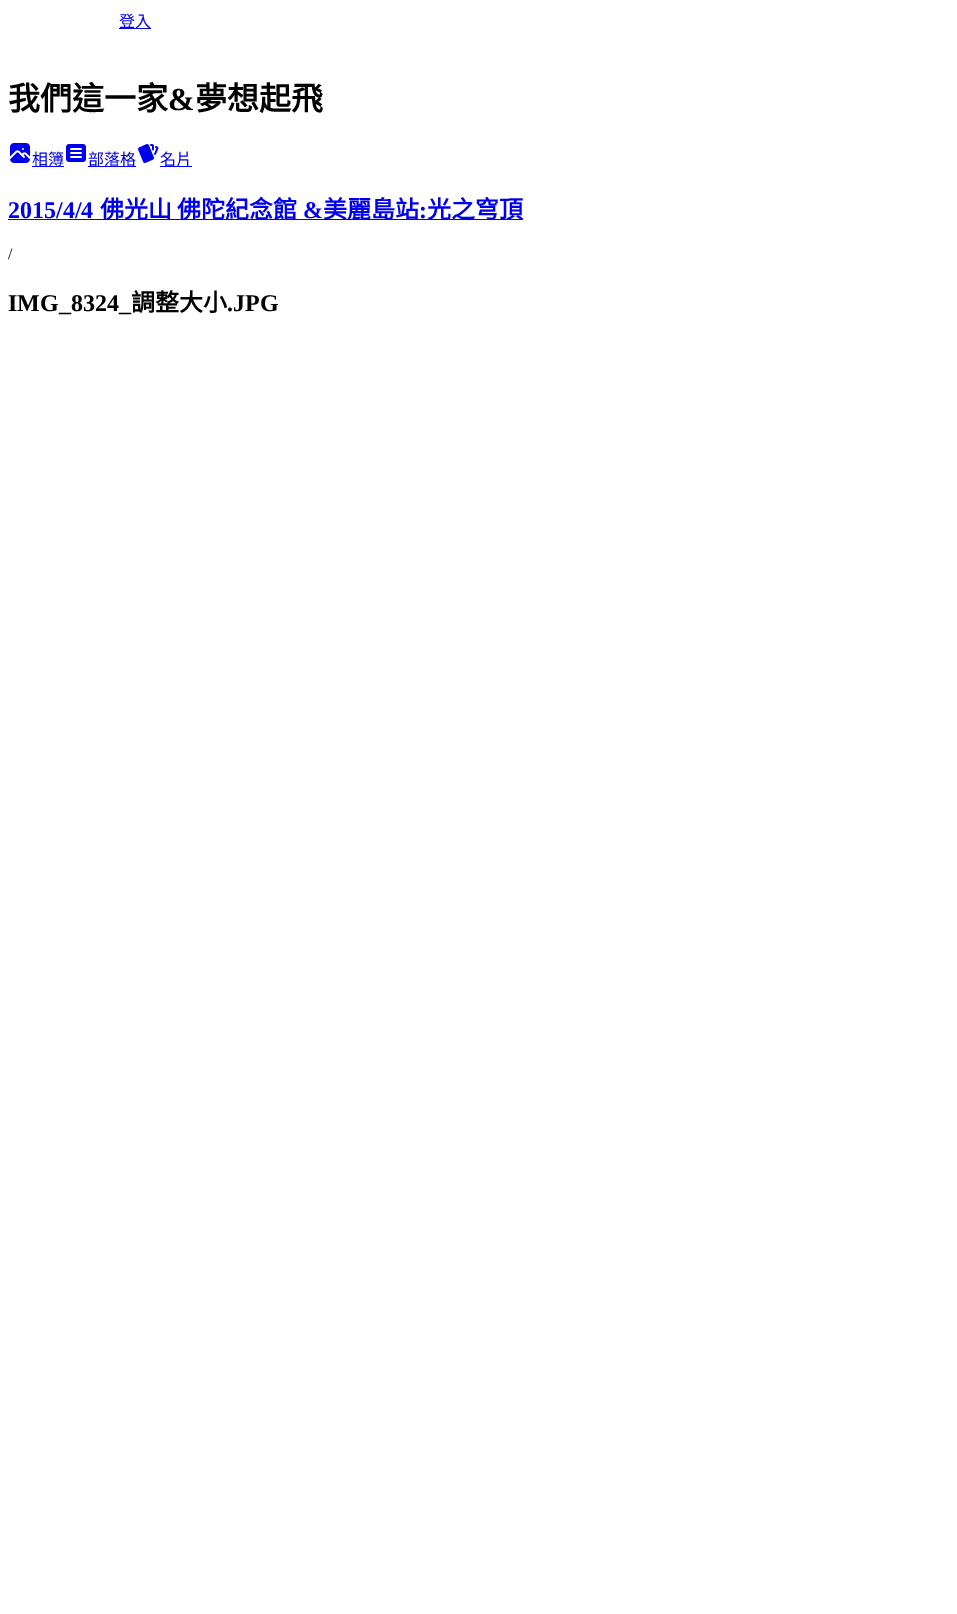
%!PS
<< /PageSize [957 1614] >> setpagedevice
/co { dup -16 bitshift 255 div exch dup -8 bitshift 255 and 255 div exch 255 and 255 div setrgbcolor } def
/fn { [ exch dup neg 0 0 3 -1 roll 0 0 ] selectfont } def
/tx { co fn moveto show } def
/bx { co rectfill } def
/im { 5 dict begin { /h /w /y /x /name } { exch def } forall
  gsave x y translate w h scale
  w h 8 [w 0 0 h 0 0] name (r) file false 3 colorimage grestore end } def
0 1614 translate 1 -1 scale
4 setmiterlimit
0 0 957 1614 16#FFFFFF bx
119 28 32 1 16#0000EE bx
(media/1.raw) 10 143 20 20 im
32 166 32 1 16#0000EE bx
(media/2.raw) 66 144 20 18 im
88 166 48 1 16#0000EE bx
(media/3.raw) 138 144 21 19 im
160 166 32 1 16#0000EE bx
8 219 515 1 16#0000EE bx
(登入) 119 27 /NotoSansCJKTC-Regular 16 16#0000EE tx
(我們這一家) 8 110 /NotoSansCJKTC-Bold 32 16#000000 tx
(&) 168 110 /LiberationSerif-Bold 32 16#000000 tx
(夢想起飛) 195 110 /NotoSansCJKTC-Bold 32 16#000000 tx
(相簿) 32 165 /NotoSansCJKTC-Regular 16 16#0000EE tx
(部落格) 88 165 /NotoSansCJKTC-Regular 16 16#0000EE tx
(名片) 160 165 /NotoSansCJKTC-Regular 16 16#0000EE tx
(2015/4/4) 8 218 /LiberationSerif-Bold 24 16#0000EE tx
(佛光山 佛陀紀念館) 100 218 /NotoSansCJKTC-Bold 24 16#0000EE tx
(&) 303 218 /LiberationSerif-Bold 24 16#0000EE tx
(美麗島站) 323 218 /NotoSansCJKTC-Bold 24 16#0000EE tx
(:) 419 218 /LiberationSerif-Bold 24 16#0000EE tx
(光之穹頂) 427 218 /NotoSansCJKTC-Bold 24 16#0000EE tx
(/) 8 259 /LiberationSerif-Regular 16 16#000000 tx
(IMG_8324_) 8 311 /LiberationSerif-Bold 24 16#000000 tx
(調整大小) 131 311 /NotoSansCJKTC-Bold 24 16#000000 tx
(.JPG) 227 311 /LiberationSerif-Bold 24 16#000000 tx
showpage
